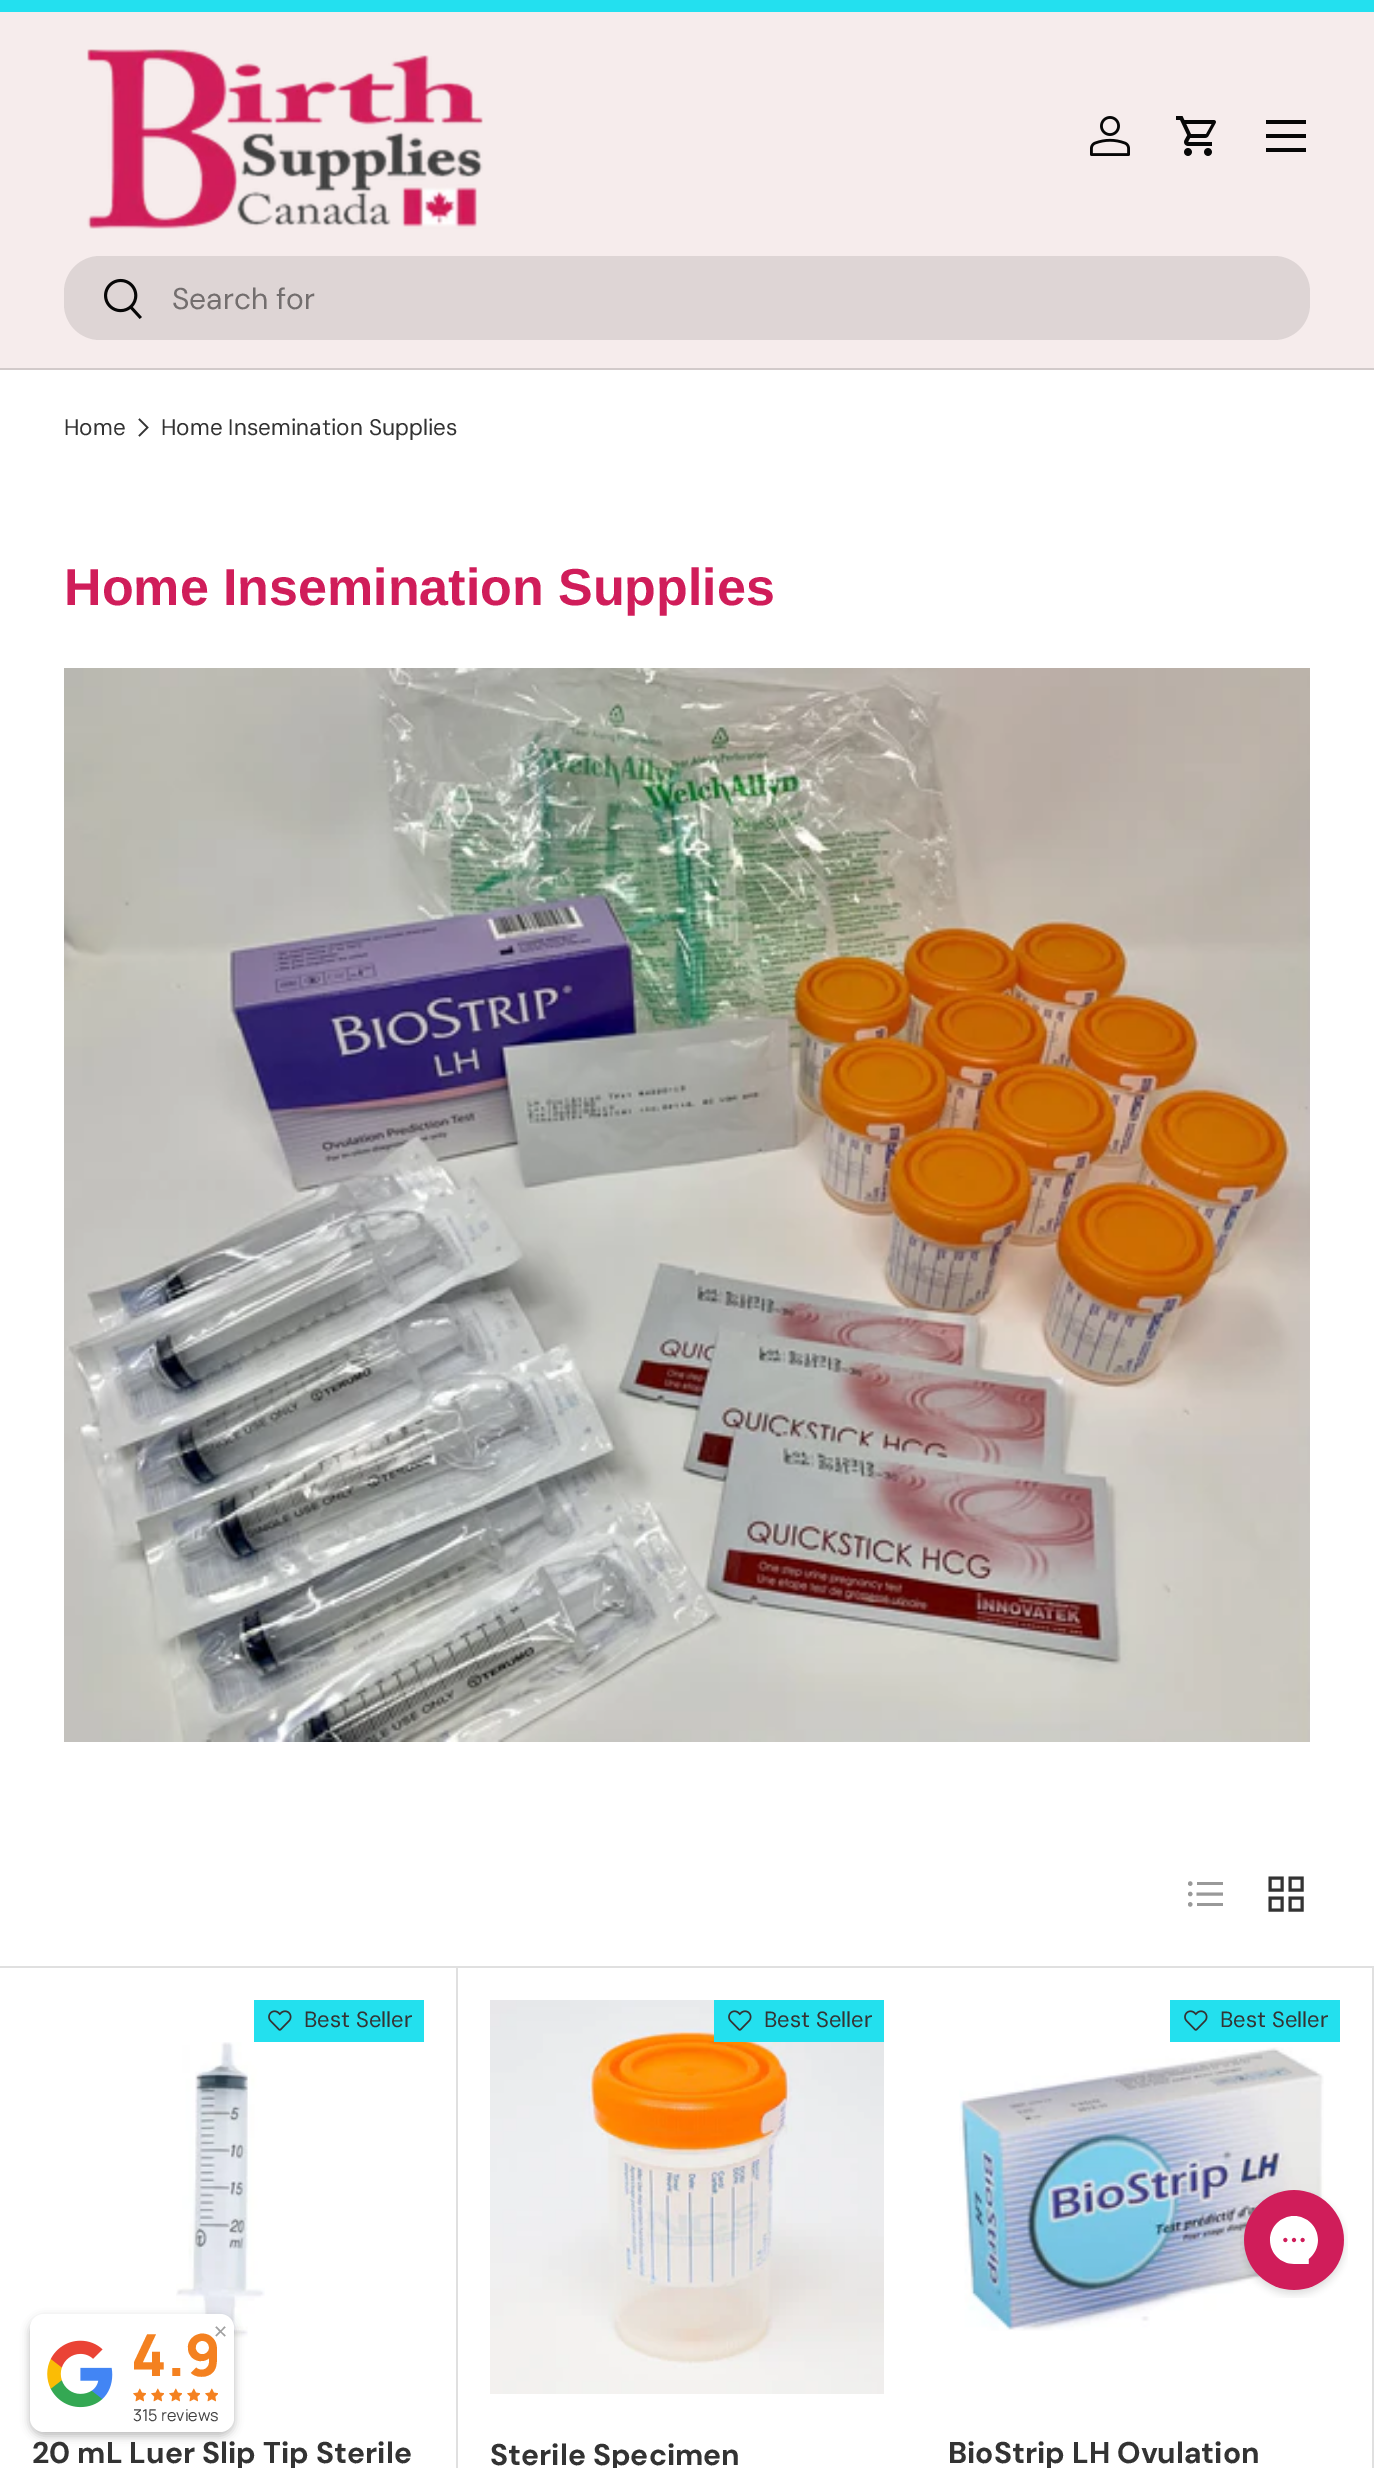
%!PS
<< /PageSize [1374 2468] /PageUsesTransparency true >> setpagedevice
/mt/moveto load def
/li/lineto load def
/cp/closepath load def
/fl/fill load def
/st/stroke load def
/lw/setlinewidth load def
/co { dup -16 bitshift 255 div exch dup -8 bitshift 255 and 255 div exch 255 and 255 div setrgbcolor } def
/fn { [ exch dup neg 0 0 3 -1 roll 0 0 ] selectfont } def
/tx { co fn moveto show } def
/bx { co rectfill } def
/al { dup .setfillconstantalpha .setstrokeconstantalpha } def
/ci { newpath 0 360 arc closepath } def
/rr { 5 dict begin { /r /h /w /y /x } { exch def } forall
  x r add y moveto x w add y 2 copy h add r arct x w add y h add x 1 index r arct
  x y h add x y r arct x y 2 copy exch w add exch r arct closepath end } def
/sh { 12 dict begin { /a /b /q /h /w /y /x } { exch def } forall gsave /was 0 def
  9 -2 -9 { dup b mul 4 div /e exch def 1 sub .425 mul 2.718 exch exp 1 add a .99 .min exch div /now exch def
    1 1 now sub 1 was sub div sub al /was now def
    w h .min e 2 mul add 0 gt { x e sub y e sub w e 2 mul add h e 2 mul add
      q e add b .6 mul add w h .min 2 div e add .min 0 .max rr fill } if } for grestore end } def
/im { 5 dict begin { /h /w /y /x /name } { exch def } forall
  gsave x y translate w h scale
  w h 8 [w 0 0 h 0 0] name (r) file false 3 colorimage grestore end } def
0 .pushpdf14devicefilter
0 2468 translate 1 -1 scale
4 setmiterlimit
0 0 1374 2468 16#FFFFFF bx
0 0 1374 12 16#23E0EF bx
0 12 1374 356 16#F6ECEC bx
0 368 1374 2 16#D2CACA bx
(media/1.raw) 87 49 396 180 im
(media/2.raw) 1090 116 40 40 im
(media/3.raw) 1176 116 40 40 im
1266 120 40 4 16#070707 bx
1266 148 40 4 16#070707 bx
1266 134 40 4 16#070707 bx
16#DED5D5 co
64 256 1246 84 36 rr fl
(media/4.raw) 104 278 38 41 im
16#333333 co
1.7 lw
139 419 mt 147.5 427.5 li 139 436 li st
(media/5.raw) 64 668 1246 1074 im
16#999999 co
1190.2 1883.6 2.2 ci fl
1197 1882 26 3 16#999999 bx
1190.2 1894 2.2 ci fl
3 lw
1196.5 1894 mt 1223 1894 li st
1190.2 1904.4 2.2 ci fl
1197 1903 26 3 16#999999 bx
16#333333 co
1270 1878 mt 1282 1878 li 1282 1890 li 1270 1890 li cp 1290 1878 mt 1302 1878 li 1302 1890 li 1290 1890 li cp 1270 1898 mt 1282 1898 li 1282 1910 li 1270 1910 li cp 1290 1898 mt 1302 1898 li 1302 1910 li 1290 1910 li cp st
0 1966 1374 2 16#E0E0E0 bx
458 1968 mt 458 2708 li 456 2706 li 456 1968 li cp fl
254 2000 170 42 16#23E0EE bx
(media/6.raw) 268 2010 24 21 im
(media/7.raw) 176 2042 89 296 im
(media/8.raw) 490 2000 394 394 im
714 2000 170 42 16#23E0EE bx
(media/6.raw) 728 2010 24 21 im
16#E0E0E0 co
1374 1968 mt 1374 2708 li 1372 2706 li 1372 1968 li cp fl
1170 2000 170 42 16#23E0EE bx
(media/6.raw) 1184 2010 24 21 im
(media/9.raw) 959 2047 365 284 im
(media/10.raw) 1240 2190 108 108 im
16#000000 co
30 2318 204 118 14 4.5 .26 sh
16#FFFFFF co
30 2314 204 118 14 rr fl
(media/11.raw) 47 2340 66 68 im
(media/12.raw) 133 2388 13 14 im
(media/12.raw) 151 2388 13 14 im
(media/12.raw) 169 2388 13 14 im
(media/12.raw) 187 2388 13 14 im
(media/12.raw) 205 2388 13 14 im
(Search for) 172 309 /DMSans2-Regular 30 16#736E6E tx
(Home) 64 435 /DMSans-Regular 22.5 16#333333 tx
(Home Insemination Supplies) 161 435 /DMSans-Regular 22.5 16#333333 tx
(Home Insemination Supplies) 64 605 /LiberationSans-Bold 52 16#D01D5A tx
(Best Seller) 304 2027 /DMSans-Regular 22 16#333333 tx
(20 mL Luer Slip Tip Sterile) 32 2463 /DMSans-Bold 30 16#333333 tx
(Best Seller) 764 2027 /DMSans-Regular 22 16#333333 tx
(Sterile Specimen) 490 2465 /DMSans-Bold 30 16#333333 tx
(Best Seller) 1220 2027 /DMSans-Regular 22 16#333333 tx
(BioStrip LH Ovulation) 948 2463 /DMSans-Bold 30 16#333333 tx
(✕) 213 2338 /DejaVuSans-Regular 18 16#A0A0A0 tx
(4.9) 131 2376 /Manrope-ExtraBold 58 16#F48120 tx
(315 reviews) 133 2421 /Manrope-Regular 16.25 16#404040 tx
.poppdf14devicefilter showpage
